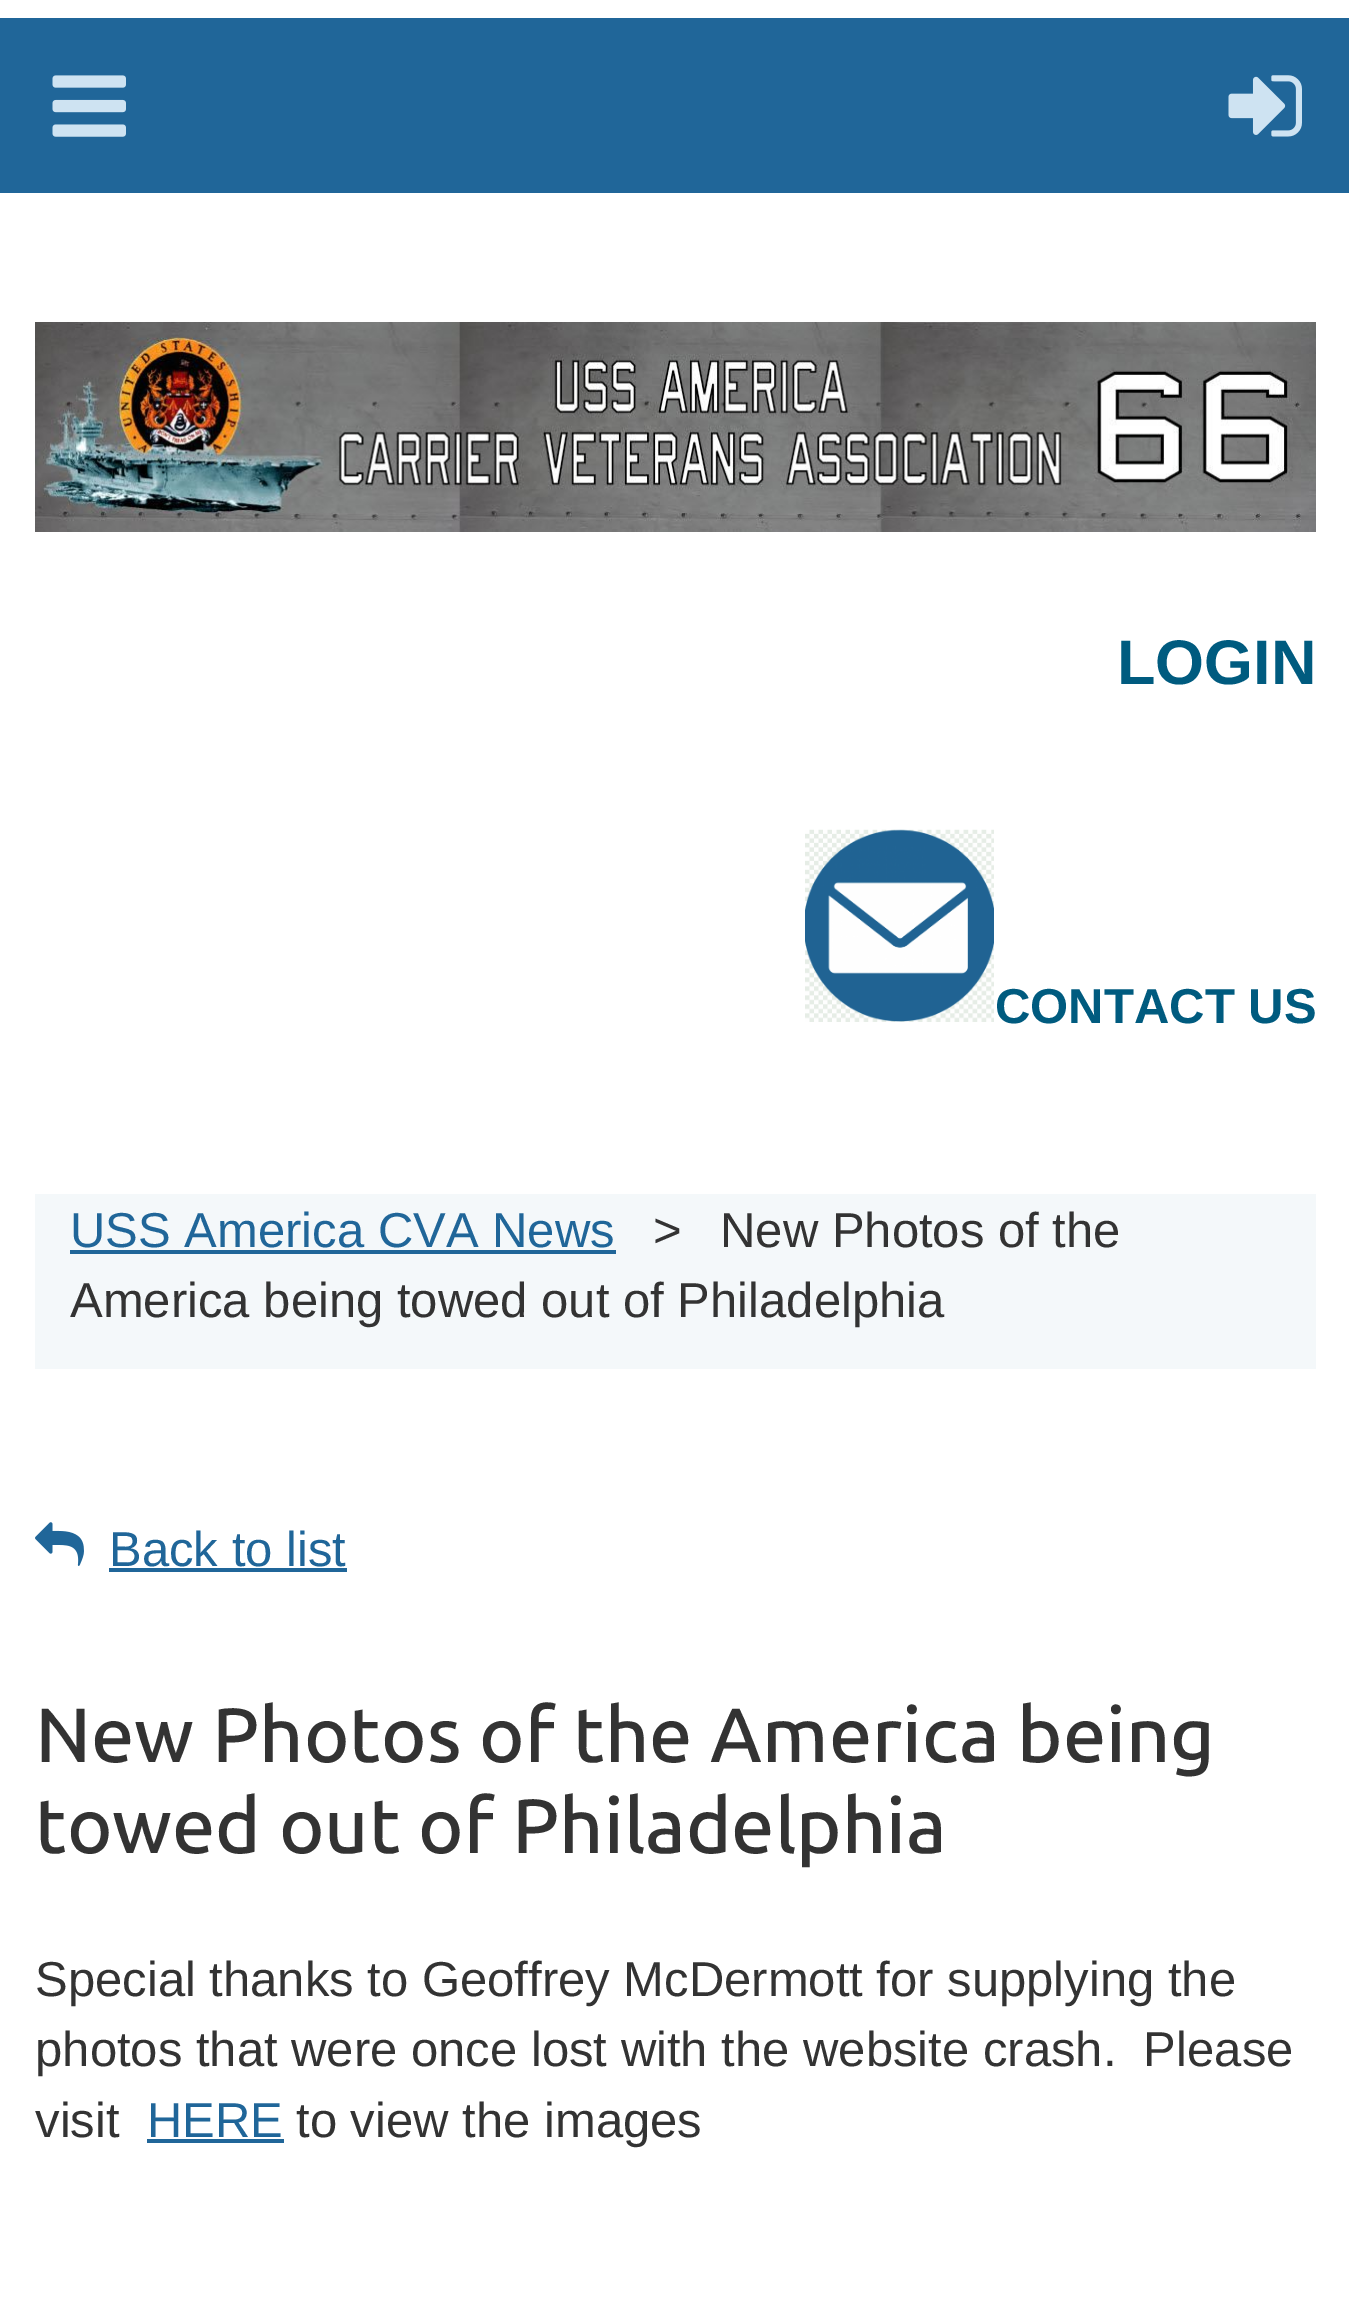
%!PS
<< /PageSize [1349 2319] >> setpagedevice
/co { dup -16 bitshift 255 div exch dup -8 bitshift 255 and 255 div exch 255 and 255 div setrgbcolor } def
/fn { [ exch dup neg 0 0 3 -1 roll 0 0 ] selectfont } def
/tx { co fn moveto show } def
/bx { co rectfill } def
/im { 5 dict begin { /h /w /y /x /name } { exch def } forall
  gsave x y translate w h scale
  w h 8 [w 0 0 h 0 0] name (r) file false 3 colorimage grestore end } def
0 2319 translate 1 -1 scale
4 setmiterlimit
0 0 1349 2319 16#FFFFFF bx
0 18 1349 175 16#206699 bx
(media/1.raw) 52 75 74 62 im
(media/2.raw) 1228 75 74 62 im
(media/3.raw) 35 322 1281 210 im
(media/4.raw) 805 829 189 193 im
35 1194 1281 175 16#F4F8FA bx
70 1250 546 4 16#206699 bx
(media/5.raw) 35 1522 49 44 im
109 1568 238 4 16#206699 bx
147 2139 137 4 16#206699 bx
(LOGIN) 1117 684 /LiberationSans-Bold 63 16#005B7F tx
(CONTACT US) 995 1023 /LiberationSans-Bold 49 16#005B7F tx
(>) 653 1247 /LiberationSans-Regular 49 16#333333 tx
(New Photos of the) 720 1247 /LiberationSans-Regular 49 16#333333 tx
(America being towed out of Philadelphia) 70 1317 /LiberationSans-Regular 49 16#333333 tx
(USS America CVA News) 70 1247 /LiberationSans-Regular 49 16#206699 tx
(Back to list) 109 1566 /LiberationSans-Regular 49 16#206699 tx
(New Photos of the America being) 35 1762 /Ubuntu-Medium 77 16#333333 tx
(towed out of Philadelphia) 35 1853 /Ubuntu-Medium 77 16#333333 tx
(Special thanks to Geoffrey McDermott for supplying the) 35 1996 /LiberationSans-Regular 49 16#333333 tx
(photos that were once lost with the website crash.  Please) 35 2066 /LiberationSans-Regular 49 16#333333 tx
(visit) 35 2137 /LiberationSans-Regular 49 16#333333 tx
(HERE) 147 2137 /LiberationSans-Regular 49 16#206699 tx
(to view the images) 296 2137 /LiberationSans-Regular 49 16#333333 tx
showpage
